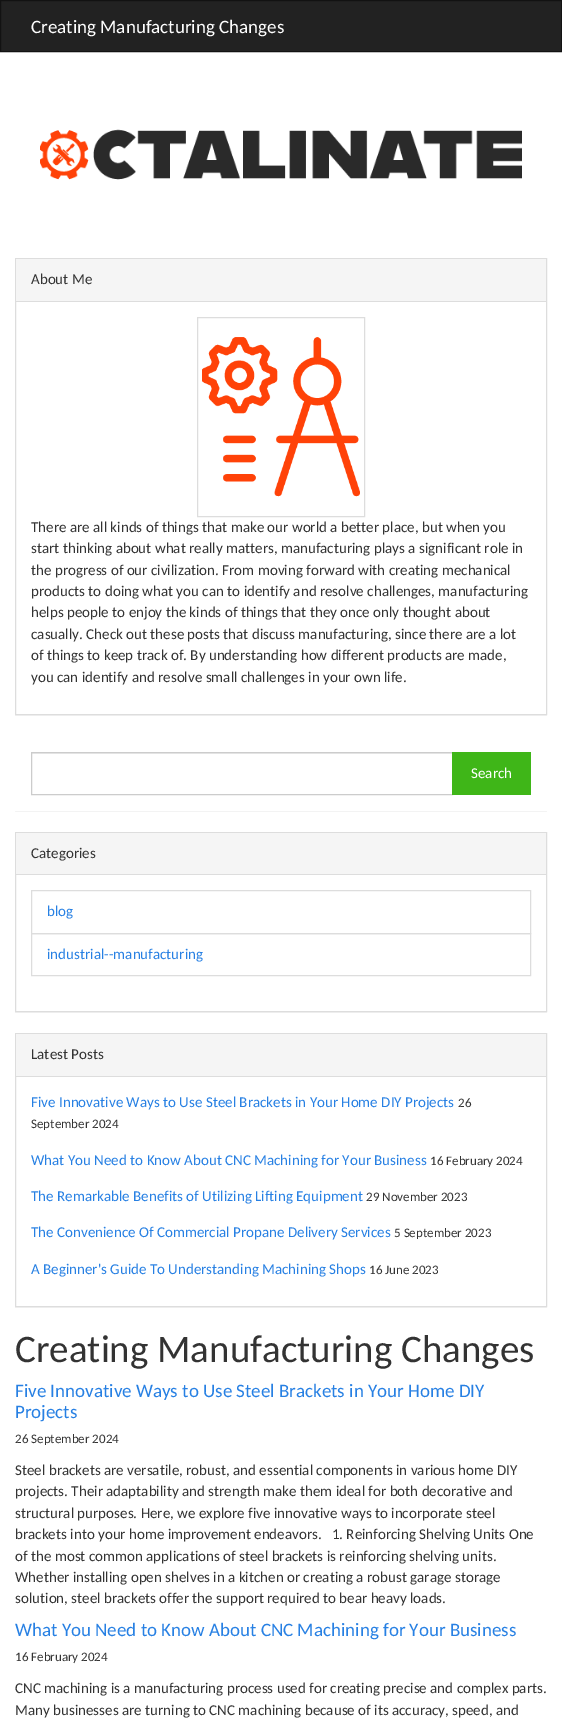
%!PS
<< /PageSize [562 1725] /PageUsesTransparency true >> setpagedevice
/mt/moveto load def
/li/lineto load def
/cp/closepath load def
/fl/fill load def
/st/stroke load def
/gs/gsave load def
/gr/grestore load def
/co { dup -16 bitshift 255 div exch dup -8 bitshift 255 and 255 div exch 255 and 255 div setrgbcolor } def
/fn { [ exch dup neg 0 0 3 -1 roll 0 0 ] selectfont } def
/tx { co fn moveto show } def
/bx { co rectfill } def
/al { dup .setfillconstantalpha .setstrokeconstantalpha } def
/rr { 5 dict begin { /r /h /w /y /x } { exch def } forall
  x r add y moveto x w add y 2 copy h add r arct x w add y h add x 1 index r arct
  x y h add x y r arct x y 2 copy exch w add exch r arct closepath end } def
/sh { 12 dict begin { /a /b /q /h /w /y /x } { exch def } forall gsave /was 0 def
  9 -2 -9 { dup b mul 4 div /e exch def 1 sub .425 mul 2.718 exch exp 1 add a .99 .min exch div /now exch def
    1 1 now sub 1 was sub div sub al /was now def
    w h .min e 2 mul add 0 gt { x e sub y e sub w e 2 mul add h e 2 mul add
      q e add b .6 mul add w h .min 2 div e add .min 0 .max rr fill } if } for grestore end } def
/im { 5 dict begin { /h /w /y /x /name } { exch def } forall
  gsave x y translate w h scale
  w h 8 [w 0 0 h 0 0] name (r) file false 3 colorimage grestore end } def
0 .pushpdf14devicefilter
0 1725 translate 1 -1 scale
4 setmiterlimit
0 0 562 1725 16#FFFFFF bx
16#222222 co
.5 .5 mt 561.5 .5 li 561.5 51.5 li .5 51.5 li cp gs fl gr
16#121212 co
st
(media/1.raw) 40 129 482 51 im
gs
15 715 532 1 rectclip
16#000000 co
15 259 532 457 0 .5 .05 sh
gr
16#DDDDDD co
15.5 258.5 531 456 rectstroke
16 259 530 42 16#F5F5F5 bx
16 301 530 1 16#DDDDDD bx
197.5 317.5 167 199 rectstroke
(media/2.raw) 202 337 158 160 im
gs
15 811 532 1 rectclip
16#000000 co
15 737 532 75 0 .5 .05 sh
gr
32 753 420 1 16#ECECEC bx
16#CCCCCC co
31.5 752.5 421 42 rectstroke
452 752 79 43 16#3FB618 bx
gs
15 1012 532 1 rectclip
16#000000 co
15 833 532 180 0 .5 .05 sh
gr
16#DDDDDD co
15.5 832.5 531 179 rectstroke
16 833 530 41 16#F5F5F5 bx
16 874 530 1 16#DDDDDD bx
31.5 890.5 499 43 rectstroke
31.5 933.5 499 42 rectstroke
gs
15 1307 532 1 rectclip
16#000000 co
15 1034 532 274 0 .5 .05 sh
gr
15.5 1033.5 531 273 rectstroke
16 1034 530 42 16#F5F5F5 bx
16 1076 530 1 16#DDDDDD bx
(Creating Manufacturing Changes) 31 33 /Carlito-Regular 19 16#FFFFFF tx
(About Me) 31 284 /Carlito-Regular 15 16#333333 tx
(There are all kinds of things that make our world a better place, but when you) 31 532 /Carlito-Regular 15 16#333333 tx
(start thinking about what really matters, manufacturing plays a significant role in) 31 553 /Carlito-Regular 15 16#333333 tx
(the progress of our civilization. From moving forward with creating mechanical) 31 575 /Carlito-Regular 15 16#333333 tx
(products to doing what you can to identify and resolve challenges, manufacturing) 31 596 /Carlito-Regular 15 16#333333 tx
(helps people to enjoy the kinds of things that they once only thought about) 31 617 /Carlito-Regular 15 16#333333 tx
(casually. Check out these posts that discuss manufacturing, since there are a lot) 31 639 /Carlito-Regular 15 16#333333 tx
(of things to keep track of. By understanding how different products are made,) 31 660 /Carlito-Regular 15 16#333333 tx
(you can identify and resolve small challenges in your own life.) 31 682 /Carlito-Regular 15 16#333333 tx
(Search) 471 778 /Carlito-Regular 15 16#FFFFFF tx
(Categories) 31 858 /Carlito-Regular 15 16#333333 tx
(blog) 47 916 /Carlito-Regular 15 16#2780E3 tx
(industrial--manufacturing) 47 959 /Carlito-Regular 15 16#2780E3 tx
(Latest Posts) 31 1059 /Carlito-Regular 15 16#333333 tx
(Five Innovative Ways to Use Steel Brackets in Your Home DIY Projects) 31 1107 /Carlito-Regular 15 16#2780E3 tx
(26) 458 1107 /Carlito-Regular 13 16#333333 tx
(September 2024) 31 1128 /Carlito-Regular 13 16#333333 tx
(What You Need to Know About CNC Machining for Your Business) 31 1165 /Carlito-Regular 15 16#2780E3 tx
(16 February 2024) 430 1165 /Carlito-Regular 13 16#333333 tx
(The Remarkable Benefits of Utilizing Lifting Equipment) 31 1201 /Carlito-Regular 15 16#2780E3 tx
(29 November 2023) 366 1201 /Carlito-Regular 13 16#333333 tx
(The Convenience Of Commercial Propane Delivery Services) 31 1237 /Carlito-Regular 15 16#2780E3 tx
(5 September 2023) 394 1237 /Carlito-Regular 13 16#333333 tx
(A Beginner's Guide To Understanding Machining Shops) 31 1274 /Carlito-Regular 15 16#2780E3 tx
(16 June 2023) 369 1274 /Carlito-Regular 13 16#333333 tx
(Creating Manufacturing Changes) 15 1362 /Carlito-Regular 39 16#333333 tx
(Five Innovative Ways to Use Steel Brackets in Your Home DIY) 15 1397 /Carlito-Regular 19 16#2780E3 tx
(Projects) 15 1418 /Carlito-Regular 19 16#2780E3 tx
(26 September 2024) 15 1443 /Carlito-Regular 13 16#333333 tx
(Steel brackets are versatile, robust, and essential components in various home DIY) 15 1475 /Carlito-Regular 15 16#333333 tx
(projects. Their adaptability and strength make them ideal for both decorative and) 15 1496 /Carlito-Regular 15 16#333333 tx
(structural purposes. Here, we explore five innovative ways to incorporate steel) 15 1518 /Carlito-Regular 15 16#333333 tx
(brackets into your home improvement endeavors.   1. Reinforcing Shelving Units One) 15 1539 /Carlito-Regular 15 16#333333 tx
(of the most common applications of steel brackets is reinforcing shelving units.) 15 1561 /Carlito-Regular 15 16#333333 tx
(Whether installing open shelves in a kitchen or creating a robust garage storage) 15 1582 /Carlito-Regular 15 16#333333 tx
(solution, steel brackets offer the support required to bear heavy loads.) 15 1603 /Carlito-Regular 15 16#333333 tx
(What You Need to Know About CNC Machining for Your Business) 15 1636 /Carlito-Regular 19 16#2780E3 tx
(16 February 2024) 15 1661 /Carlito-Regular 13 16#333333 tx
(CNC machining is a manufacturing process used for creating precise and complex parts.) 15 1693 /Carlito-Regular 15 16#333333 tx
(Many businesses are turning to CNC machining because of its accuracy, speed, and) 15 1715 /Carlito-Regular 15 16#333333 tx
.poppdf14devicefilter showpage
